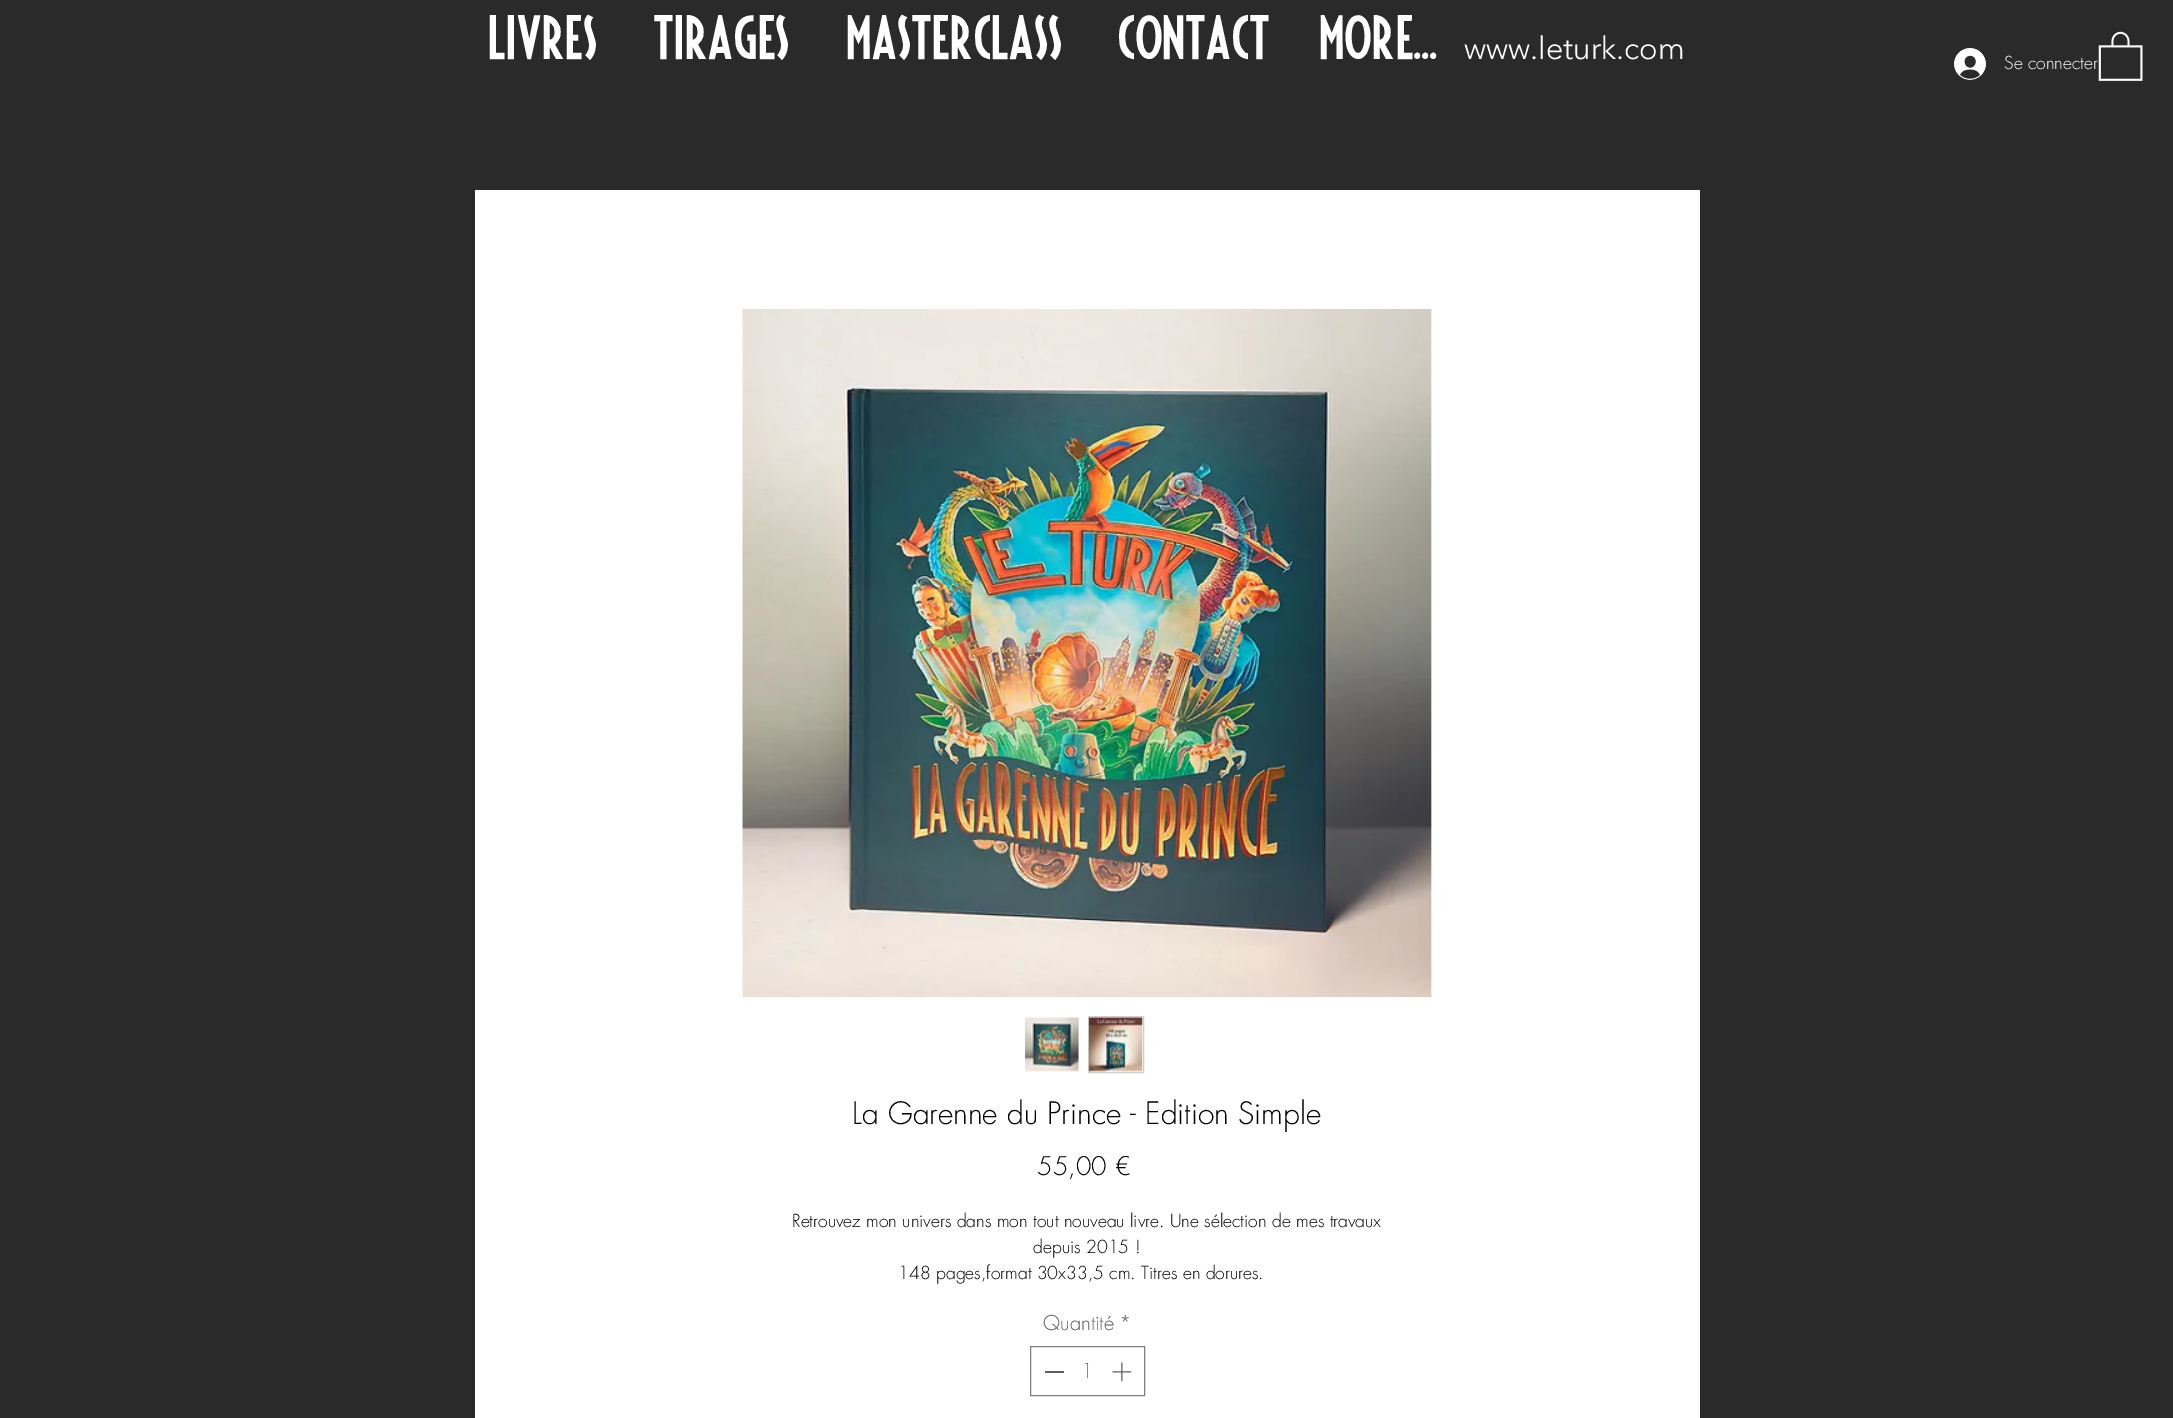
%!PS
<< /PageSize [2173 1418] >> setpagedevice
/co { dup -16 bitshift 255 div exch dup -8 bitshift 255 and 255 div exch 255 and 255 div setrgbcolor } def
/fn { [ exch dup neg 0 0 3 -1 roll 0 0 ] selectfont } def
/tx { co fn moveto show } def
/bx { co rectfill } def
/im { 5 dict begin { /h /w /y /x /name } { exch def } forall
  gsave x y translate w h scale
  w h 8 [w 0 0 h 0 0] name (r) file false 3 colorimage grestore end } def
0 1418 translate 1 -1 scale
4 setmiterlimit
0 0 2173 1418 16#2A2A2A bx
(media/1.raw) 1954 48 32 32 im
(media/2.raw) 2098 31 45 50 im
475 190 1225 1228 16#FFFFFF bx
(media/3.raw) 742 309 690 688 im
(media/4.raw) 1025 1017 54 55 im
16#CCCCCC co
1088.5 1016.5 55 56 rectstroke
(media/5.raw) 1088 1017 55 55 im
16#7F7F7F co
1030.5 1346.5 114 49 rectstroke
1045 1371 19 2 16#605E5E bx
(media/6.raw) 1112 1362 20 20 im
(LIVRES) 487 59 /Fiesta-Regular 50 16#FFFFFF tx
(Tirages) 653 59 /Fiesta-Regular 50 16#FFFFFF tx
(MASTERCLASS) 846 59 /Fiesta-Regular 50 16#FFFFFF tx
(Contact) 1117 59 /Fiesta-Regular 50 16#FFFFFF tx
(More...) 1319 59 /Fiesta-Regular 50 16#FFFFFF tx
(www.leturk.com) 1464 59 /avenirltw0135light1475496-Light 31.25 16#FFFFFF tx
(Se connecter) 2004 69 /futura-Light 17.5 16#FFFFFF tx
(La Garenne du Prince - Edition Simple) 852 1124 /futura-Light 30 16#000000 tx
(55,00 €) 1037 1175 /futura-Light 25 16#000000 tx
(Retrouvez mon univers dans mon tout nouveau livre. Une sélection de mes travaux) 792 1227 /futura-Light 17.5 16#000000 tx
(depuis 2015 !) 1033 1253 /futura-Light 17.5 16#000000 tx
(148 pages,format 30x33,5 cm. Titres en dorures.) 898 1279 /futura-Light 17.5 16#000000 tx
(Quantité) 1043 1330 /futura-Light 20 16#605E5E tx
(*) 1119 1330 /futura-Light 20 16#605E5E tx
(1) 1081 1378 /futura-Light 20 16#605E5E tx
showpage
